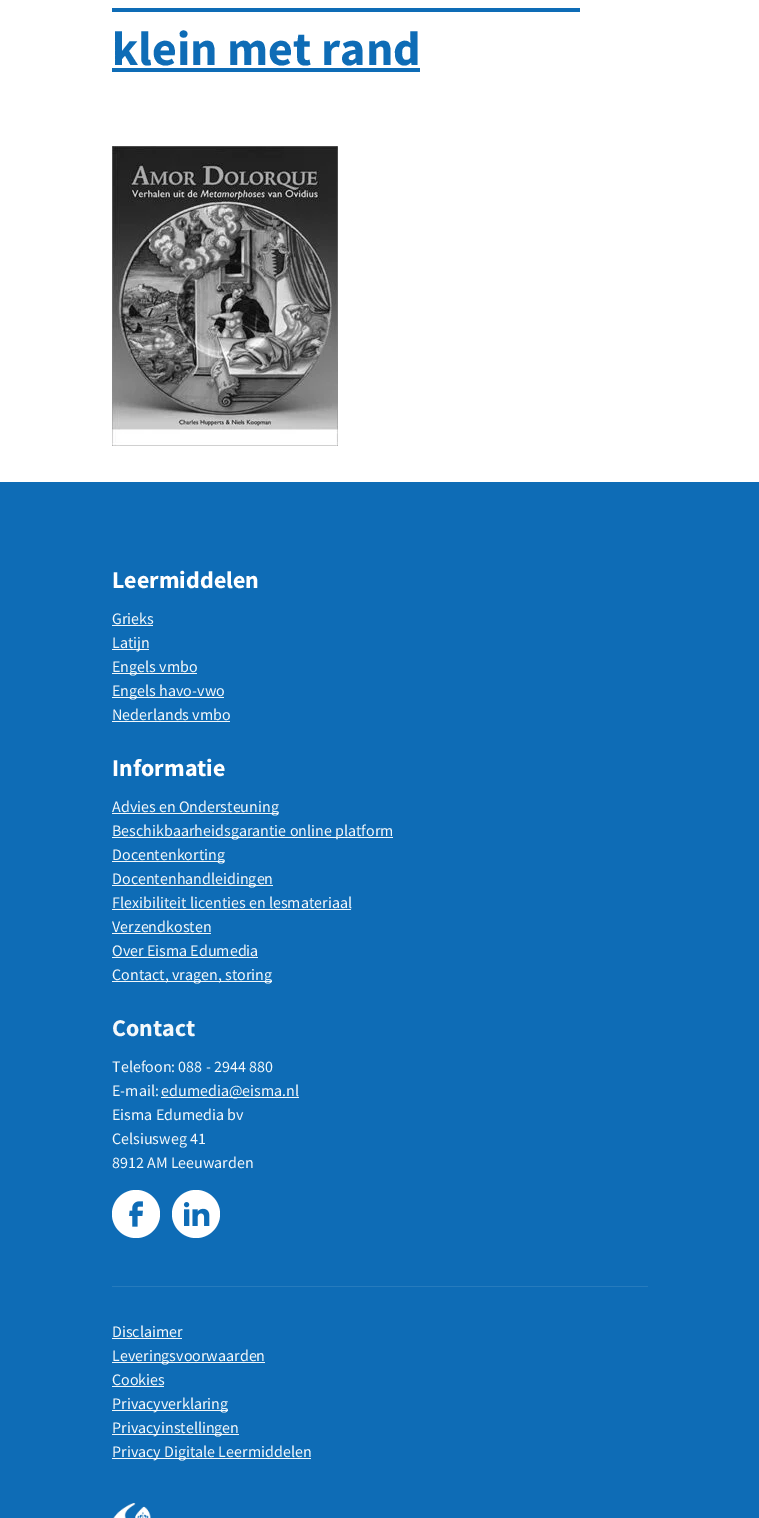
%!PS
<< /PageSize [759 1518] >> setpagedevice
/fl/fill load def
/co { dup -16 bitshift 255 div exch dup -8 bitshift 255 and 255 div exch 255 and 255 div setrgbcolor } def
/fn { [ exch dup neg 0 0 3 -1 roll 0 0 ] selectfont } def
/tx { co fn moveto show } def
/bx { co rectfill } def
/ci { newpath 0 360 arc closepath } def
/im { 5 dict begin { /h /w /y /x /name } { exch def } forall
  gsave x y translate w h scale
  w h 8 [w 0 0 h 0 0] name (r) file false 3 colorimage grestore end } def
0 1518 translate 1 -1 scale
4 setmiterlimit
0 0 759 1518 16#FFFFFF bx
112 8 468 4 16#0E6CB6 bx
112 68 308 4 16#0E6CB6 bx
(media/1.raw) 112 146 226 300 im
0 482 759 1036 16#0E6CB6 bx
112 625 41 1 16#F3F8FB bx
112 649 37 1 16#F3F8FB bx
112 673 85 1 16#F3F8FB bx
112 697 112 1 16#F3F8FB bx
112 721 118 1 16#F3F8FB bx
112 813 166 1 16#F3F8FB bx
112 837 281 1 16#F3F8FB bx
112 861 112 1 16#F3F8FB bx
112 885 161 1 16#F3F8FB bx
112 909 239 1 16#F3F8FB bx
112 933 99 1 16#F3F8FB bx
112 957 146 1 16#F3F8FB bx
112 981 160 1 16#F3F8FB bx
161 1097 138 1 16#F3F8FB bx
16#FFFFFF co
136 1214 24 ci fl
(media/2.raw) 129 1201 14 26 im
196 1214 24 ci fl
(media/3.raw) 183 1202 27 24 im
112 1286 536 1 16#267BBD bx
112 1338 70 1 16#F3F8FB bx
112 1362 153 1 16#F3F8FB bx
112 1386 52 1 16#F3F8FB bx
112 1410 116 1 16#F3F8FB bx
112 1434 127 1 16#F3F8FB bx
112 1458 199 1 16#F3F8FB bx
(media/4.raw) 113 1503 38 15 im
(klein met rand) 112 65 /SourceSansPro-Bold 48 16#0E6CB6 tx
(Leermiddelen) 112 588 /SourceSansPro-Bold 24 16#FFFFFF tx
(Grieks) 112 624 /SourceSansPro-Regular 16 16#F3F8FB tx
(Latijn) 112 648 /SourceSansPro-Regular 16 16#F3F8FB tx
(Engels vmbo) 112 672 /SourceSansPro-Regular 16 16#F3F8FB tx
(Engels havo-vwo) 112 696 /SourceSansPro-Regular 16 16#F3F8FB tx
(Nederlands vmbo) 112 720 /SourceSansPro-Regular 16 16#F3F8FB tx
(Informatie) 112 776 /SourceSansPro-Bold 24 16#FFFFFF tx
(Advies en Ondersteuning) 112 812 /SourceSansPro-Regular 16 16#F3F8FB tx
(Beschikbaarheidsgarantie online platform) 112 836 /SourceSansPro-Regular 16 16#F3F8FB tx
(Docentenkorting) 112 860 /SourceSansPro-Regular 16 16#F3F8FB tx
(Docentenhandleidingen) 112 884 /SourceSansPro-Regular 16 16#F3F8FB tx
(Flexibiliteit licenties en lesmateriaal) 112 908 /SourceSansPro-Regular 16 16#F3F8FB tx
(Verzendkosten) 112 932 /SourceSansPro-Regular 16 16#F3F8FB tx
(Over Eisma Edumedia) 112 956 /SourceSansPro-Regular 16 16#F3F8FB tx
(Contact, vragen, storing) 112 980 /SourceSansPro-Regular 16 16#F3F8FB tx
(Contact) 112 1036 /SourceSansPro-Bold 24 16#F3F8FB tx
(Telefoon: 088 - 2944 880) 112 1072 /SourceSansPro-Regular 16 16#F3F8FB tx
(E-mail:) 112 1096 /SourceSansPro-Regular 16 16#F3F8FB tx
(edumedia@eisma.nl) 161 1096 /SourceSansPro-Regular 16 16#F3F8FB tx
(Eisma Edumedia bv) 112 1120 /SourceSansPro-Regular 16 16#F3F8FB tx
(Celsiusweg 41) 112 1144 /SourceSansPro-Regular 16 16#F3F8FB tx
(8912 AM Leeuwarden) 112 1168 /SourceSansPro-Regular 16 16#F3F8FB tx
(Disclaimer) 112 1337 /SourceSansPro-Regular 16 16#F3F8FB tx
(Leveringsvoorwaarden) 112 1361 /SourceSansPro-Regular 16 16#F3F8FB tx
(Cookies) 112 1385 /SourceSansPro-Regular 16 16#F3F8FB tx
(Privacyverklaring) 112 1409 /SourceSansPro-Regular 16 16#F3F8FB tx
(Privacyinstellingen) 112 1433 /SourceSansPro-Regular 16 16#F3F8FB tx
(Privacy Digitale Leermiddelen) 112 1457 /SourceSansPro-Regular 16 16#F3F8FB tx
showpage
